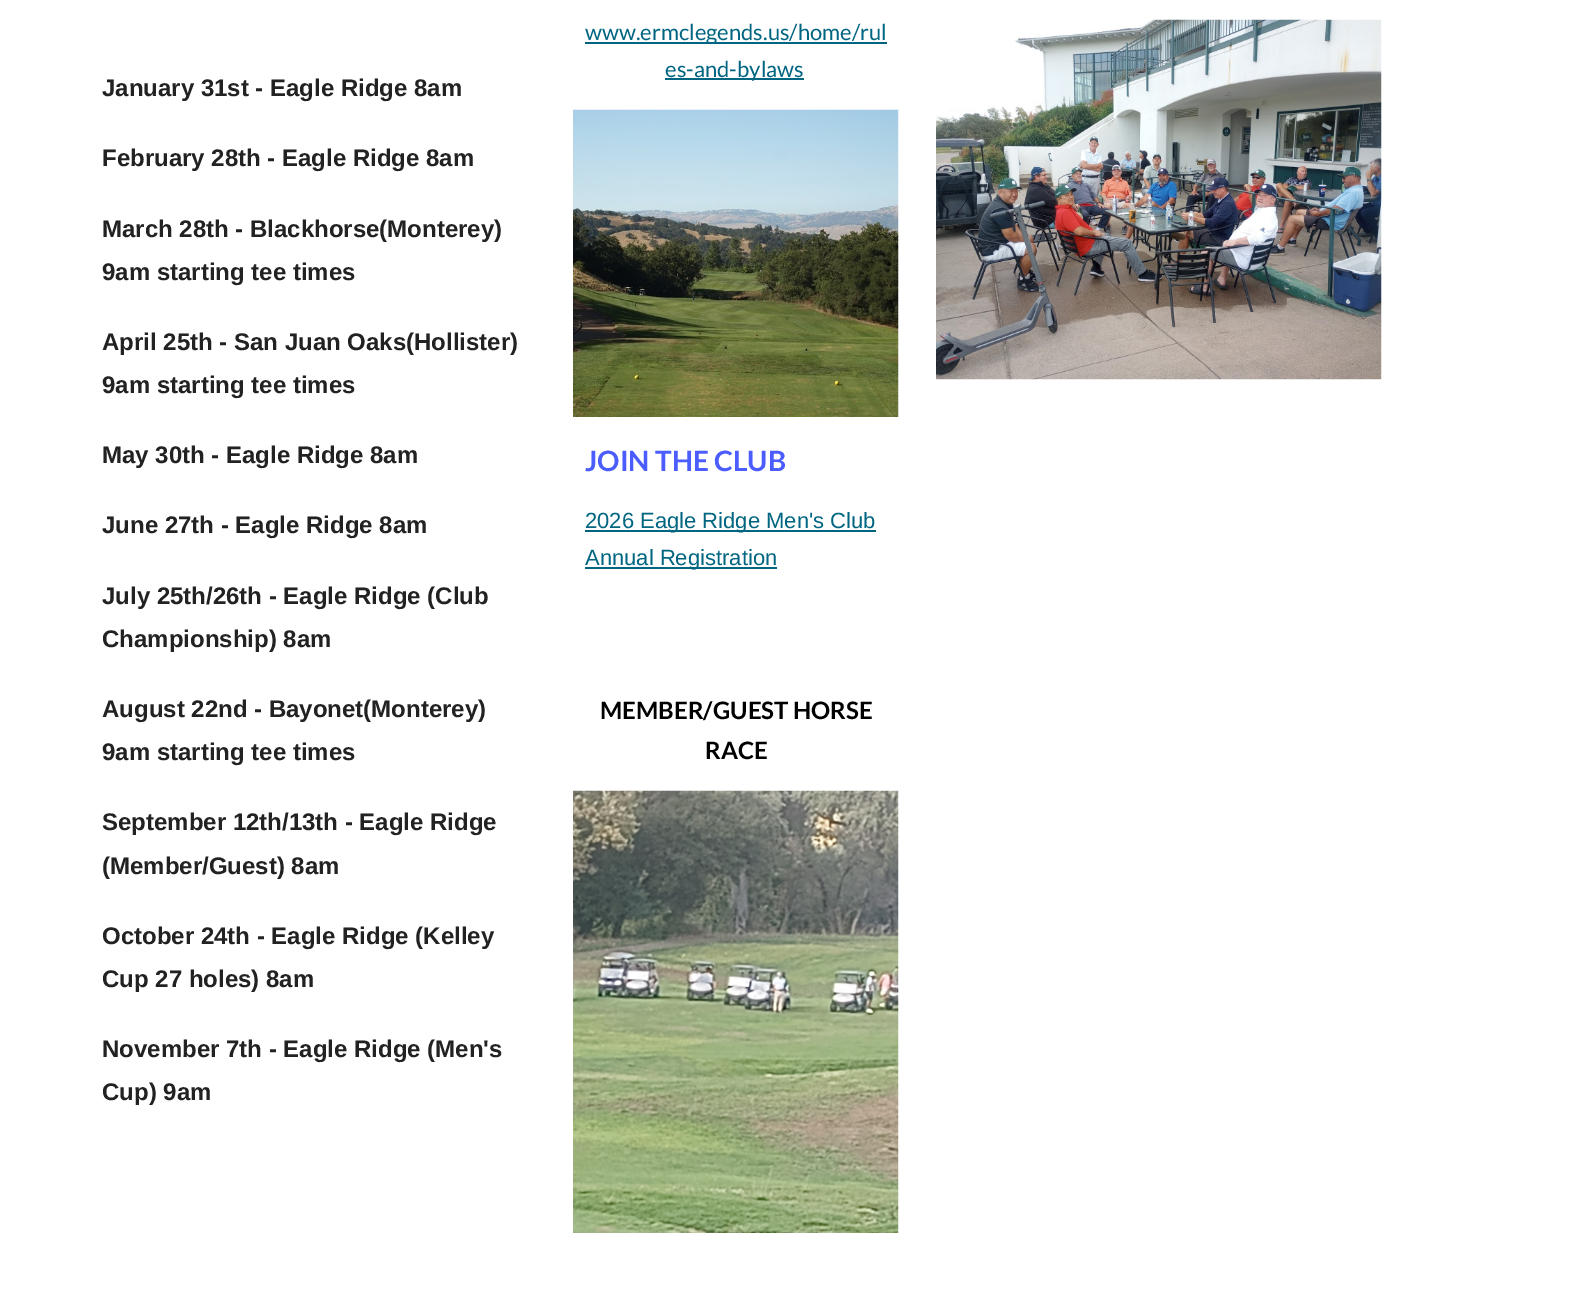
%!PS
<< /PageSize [1592 1310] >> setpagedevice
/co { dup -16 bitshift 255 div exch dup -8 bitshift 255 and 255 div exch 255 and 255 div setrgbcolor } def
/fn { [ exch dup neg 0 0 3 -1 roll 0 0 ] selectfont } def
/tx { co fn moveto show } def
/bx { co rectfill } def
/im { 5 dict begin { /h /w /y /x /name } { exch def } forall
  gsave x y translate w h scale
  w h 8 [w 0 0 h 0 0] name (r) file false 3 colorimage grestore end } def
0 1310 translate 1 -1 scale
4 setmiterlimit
0 0 1592 1310 16#FFFFFF bx
585 42 302 2 16#006580 bx
665 78 139 2 16#006580 bx
(media/1.raw) 573 109 326 308 im
585 530 291 2 16#006580 bx
585 567 192 2 16#006580 bx
(media/2.raw) 573 790 326 443 im
(media/3.raw) 936 19 446 361 im
(January 31st - Eagle Ridge 8am) 102 96 /LiberationSans-Bold 24 16#222222 tx
(February 28th - Eagle Ridge 8am) 102 166 /LiberationSans-Bold 24 16#222222 tx
(March 28th - Blackhorse\(Monterey\)) 102 237 /LiberationSans-Bold 24 16#222222 tx
(9am starting tee times) 102 280 /LiberationSans-Bold 24 16#222222 tx
(April 25th - San Juan Oaks\(Hollister\)) 102 350 /LiberationSans-Bold 24 16#222222 tx
(9am starting tee times) 102 393 /LiberationSans-Bold 24 16#222222 tx
(May 30th - Eagle Ridge 8am) 102 463 /LiberationSans-Bold 24 16#222222 tx
(June 27th - Eagle Ridge 8am) 102 533 /LiberationSans-Bold 24 16#222222 tx
(July 25th/26th - Eagle Ridge \(Club) 102 604 /LiberationSans-Bold 24 16#222222 tx
(Championship\) 8am) 102 647 /LiberationSans-Bold 24 16#222222 tx
(August 22nd - Bayonet\(Monterey\)) 102 717 /LiberationSans-Bold 24 16#222222 tx
(9am starting tee times) 102 760 /LiberationSans-Bold 24 16#222222 tx
(September 12th/13th - Eagle Ridge) 102 830 /LiberationSans-Bold 24 16#222222 tx
(\(Member/Guest\) 8am) 102 874 /LiberationSans-Bold 24 16#222222 tx
(October 24th - Eagle Ridge \(Kelley) 102 944 /LiberationSans-Bold 24 16#222222 tx
(Cup 27 holes\) 8am) 102 987 /LiberationSans-Bold 24 16#222222 tx
(November 7th - Eagle Ridge \(Men's) 102 1057 /LiberationSans-Bold 24 16#222222 tx
(Cup\) 9am) 102 1100 /LiberationSans-Bold 24 16#222222 tx
(www.ermclegends.us/home/rul) 585 40 /Lato-Regular 22 16#006580 tx
(es-and-bylaws) 665 77 /Lato-Regular 22 16#006580 tx
(JOIN THE CLUB) 585 471 /Lato-Bold 28 16#4B5DFF tx
(2026 Eagle Ridge Men's Club) 585 528 /LiberationSans-Regular 22 16#006580 tx
(Annual Registration) 585 565 /LiberationSans-Regular 22 16#006580 tx
(MEMBER/GUEST HORSE) 600 719 /Lato-Bold 24 16#000000 tx
(RACE) 705 759 /Lato-Bold 24 16#000000 tx
showpage
